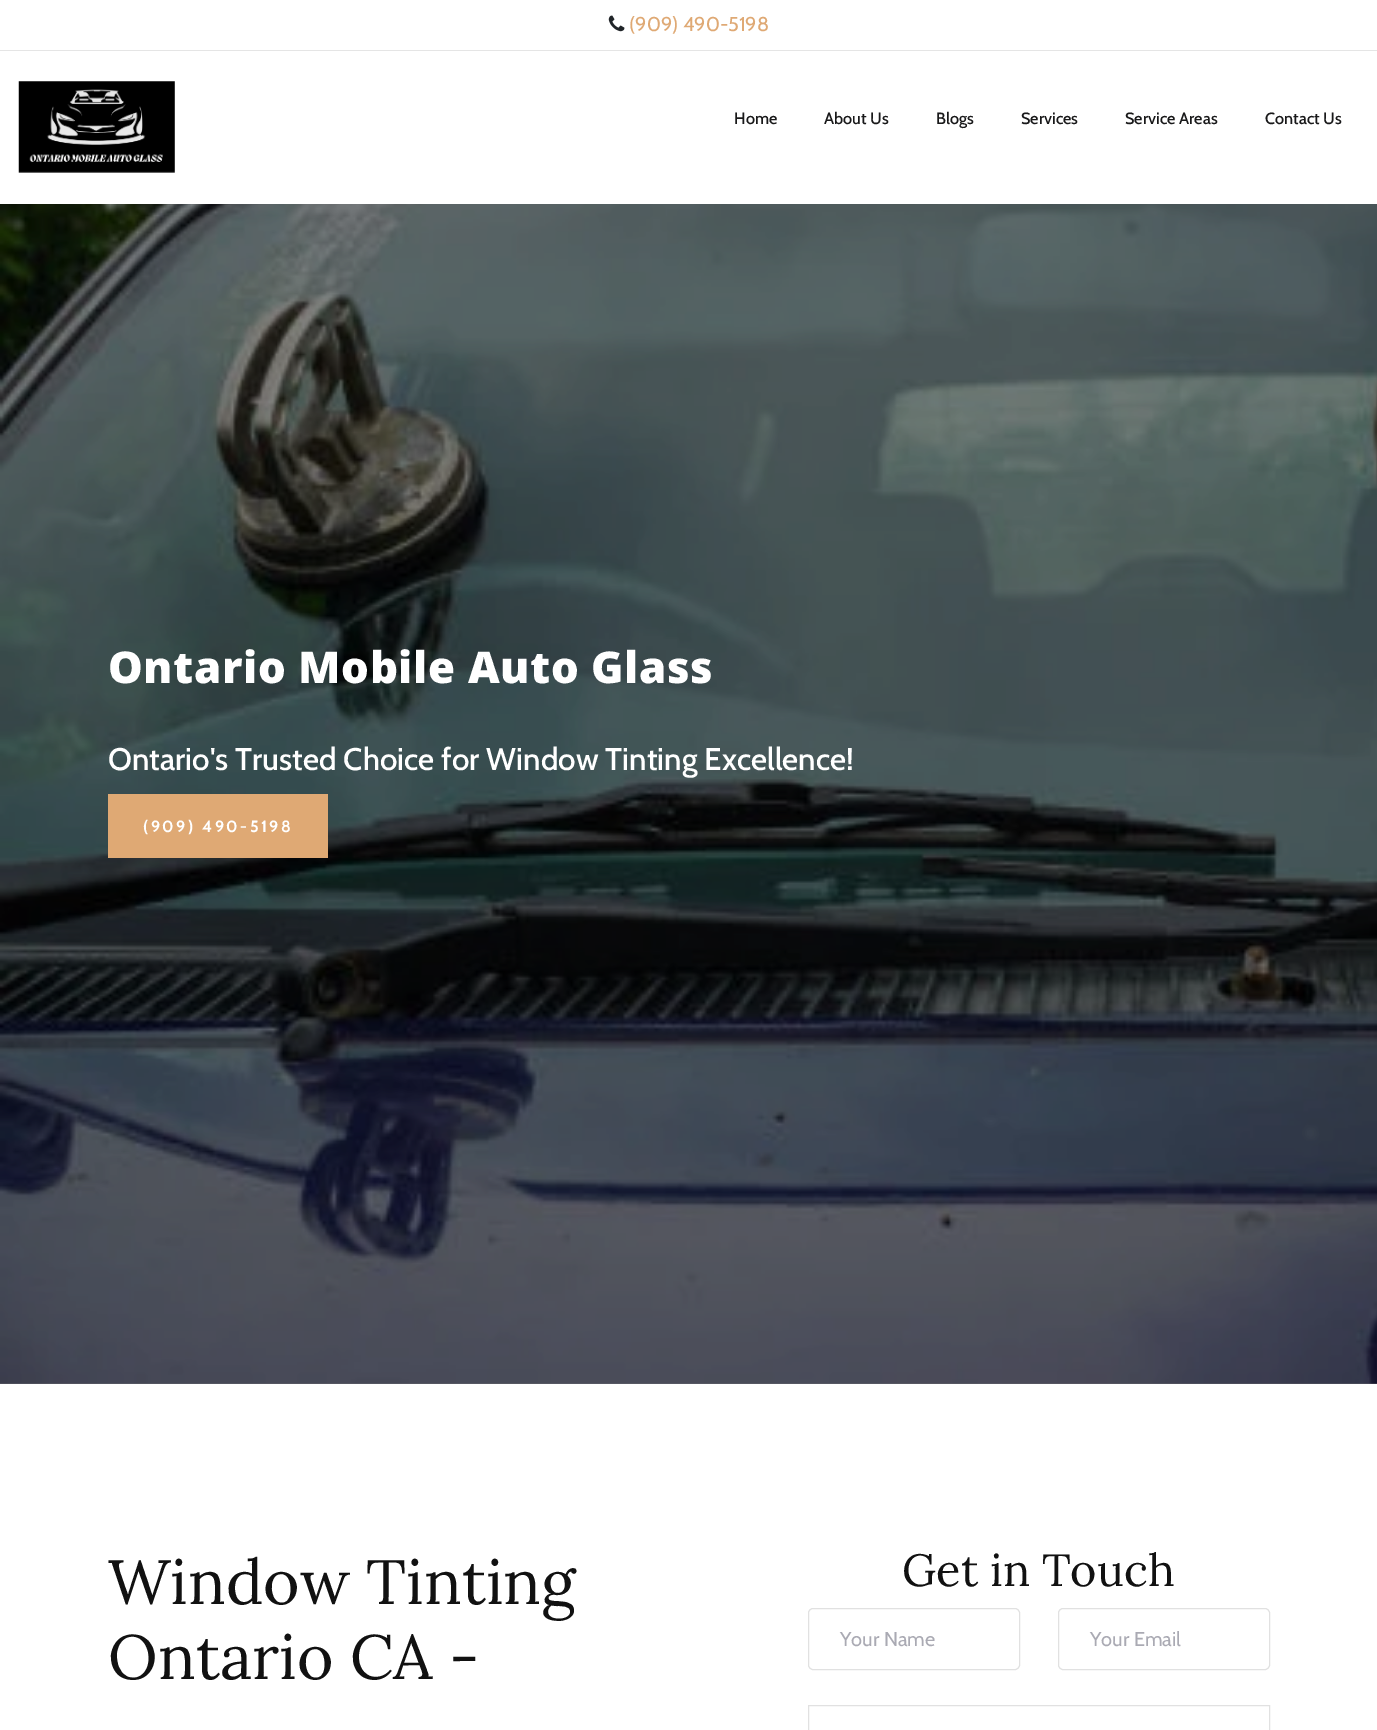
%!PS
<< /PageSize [1377 1730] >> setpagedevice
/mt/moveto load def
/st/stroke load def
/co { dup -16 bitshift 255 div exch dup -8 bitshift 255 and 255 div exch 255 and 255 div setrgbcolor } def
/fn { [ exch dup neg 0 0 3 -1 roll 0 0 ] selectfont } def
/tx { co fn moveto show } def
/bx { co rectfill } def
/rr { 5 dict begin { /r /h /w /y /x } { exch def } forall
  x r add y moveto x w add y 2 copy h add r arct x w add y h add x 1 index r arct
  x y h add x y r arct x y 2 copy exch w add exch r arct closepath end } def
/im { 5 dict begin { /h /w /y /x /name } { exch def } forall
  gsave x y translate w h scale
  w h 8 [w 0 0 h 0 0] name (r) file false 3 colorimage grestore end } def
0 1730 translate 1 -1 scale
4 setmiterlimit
0 0 1377 1730 16#FFFFFF bx
0 50 1377 1 16#E5E5E5 bx
(media/1.raw) 608 15 17 17 im
(media/2.raw) 18 81 157 92 im
(media/3.raw) 0 204 1377 1180 im
108 794 220 64 16#DFA974 bx
16#E1E1E1 co
808.5 1608.5 211 61 4.5 rr st
1058.5 1608.5 211 61 4.5 rr st
808.5 1705.5 461 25 rectstroke
(\(909\) 490-5198) 629 31 /Cabin-Regular 20 16#DFA974 tx
(Home) 734 124 /Cabin-Medium 16.25 16#19191A tx
(About Us) 824 124 /Cabin-Medium 16.25 16#19191A tx
(Blogs) 936 124 /Cabin-Medium 16.25 16#19191A tx
(Services) 1021 124 /Cabin-Medium 16.25 16#19191A tx
(Service Areas) 1125 124 /Cabin-Medium 16.25 16#19191A tx
(Contact Us) 1265 124 /Cabin-Medium 16.25 16#19191A tx
/OpenSans-ExtraBold 43.75 fn
16#FFFFFF co
108 683 mt .6 0 (Ontario Mobile Auto Glass) ashow
(Ontario's Trusted Choice for Window Tinting Excellence!) 108 770 /Cabin-Medium 31.25 16#FFFFFF tx
/Cabin-Bold 16.25 fn
143 832 mt 2.5 0 (\(909\) 490-5198) ashow
(Window Tinting) 108 1604 /Lora-Regular 62.5 16#111111 tx
(Ontario CA -) 108 1679 /Lora-Regular 62.5 16#111111 tx
(Get in Touch) 902 1586 /Lora-Regular 45 16#111111 tx
(Your Name) 840 1646 /Cabin-Regular 20 16#AAAAB3 tx
(Your Email) 1090 1646 /Cabin-Regular 20 16#AAAAB3 tx
showpage
